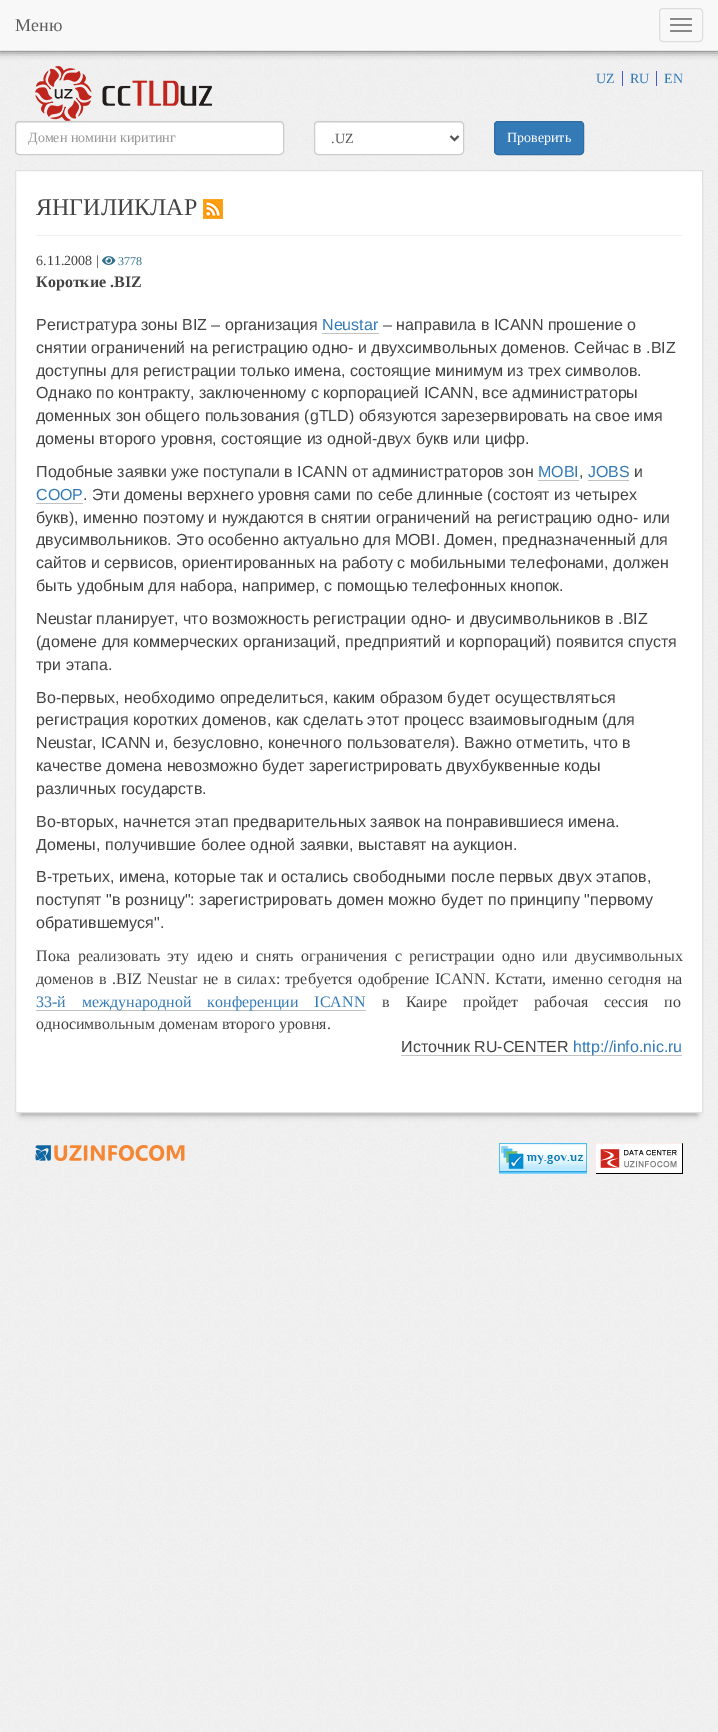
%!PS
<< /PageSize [718 1732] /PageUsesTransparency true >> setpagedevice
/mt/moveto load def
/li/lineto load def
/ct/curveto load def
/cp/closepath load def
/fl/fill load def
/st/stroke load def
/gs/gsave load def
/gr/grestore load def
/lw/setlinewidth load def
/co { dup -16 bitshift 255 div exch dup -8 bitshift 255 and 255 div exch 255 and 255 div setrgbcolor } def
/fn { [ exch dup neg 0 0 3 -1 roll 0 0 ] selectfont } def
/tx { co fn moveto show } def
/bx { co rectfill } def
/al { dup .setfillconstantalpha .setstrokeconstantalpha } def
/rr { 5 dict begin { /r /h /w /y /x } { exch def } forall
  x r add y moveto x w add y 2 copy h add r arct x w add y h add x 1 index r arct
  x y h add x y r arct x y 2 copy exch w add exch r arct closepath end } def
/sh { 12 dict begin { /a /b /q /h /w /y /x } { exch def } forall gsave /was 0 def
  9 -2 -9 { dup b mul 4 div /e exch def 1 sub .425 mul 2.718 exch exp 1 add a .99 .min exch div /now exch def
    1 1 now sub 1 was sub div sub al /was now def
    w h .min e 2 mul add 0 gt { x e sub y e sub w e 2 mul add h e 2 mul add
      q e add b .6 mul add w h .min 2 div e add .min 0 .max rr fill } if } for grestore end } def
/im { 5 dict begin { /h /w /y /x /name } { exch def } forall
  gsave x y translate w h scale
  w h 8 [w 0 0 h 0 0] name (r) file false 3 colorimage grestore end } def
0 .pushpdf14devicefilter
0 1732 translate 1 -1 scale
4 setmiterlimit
0 0 718 1732 16#FFFFFF bx
(media/1.raw) 0 51 718 1681 im
16#464646 co
0 0 718 51 0 4 1 sh
0 0 718 50 16#F8F8F8 bx
0 50 718 1 16#E7E7E7 bx
16#DDDDDD co
659.5 8.5 43 33 3.5 rr st
16#888888 co
670 18 22 2 1 rr fl
670 24 22 2 1 rr fl
670 30 22 2 1 rr fl
16#FFFFFF co
15 121 269 34 4 rr fl
16#ECECEC co
19 123 mt 280 123 li 282 123 283 124 283 126 ct 283 125 li 283 123 282 122 280 122 ct 19 122 li 17 122 16 123 16 125 ct 16 126 li 16 124 17 123 19 123 ct cp fl
16#CCCCCC co
15.5 121.5 268 33 3.5 rr st
16#FFFFFF co
314 121 150 34 4 rr fl
16#ECECEC co
318 123 mt 460 123 li 462 123 463 124 463 126 ct 463 124 463 123 461 122 ct 342 122 li 334 122 315 117 315 126 ct 315 124 316 123 318 123 ct cp fl
16#CCCCCC co
314.5 121.5 149 33 3.5 rr st
16#555555 co
2 lw
450.5 136 mt 454.5 140 li 458.5 136 li st
16#337AB7 co
494.5 121.5 89 33 3.5 rr gs fl gr
16#2E6DA4 co
1 lw
st
(media/2.raw) 35 66 177 55 im
622 71 1 15 16#435DCD bx
656 71 1 15 16#435DCD bx
16#999999 co
21 184 676 931 0 3 1 sh
16#FFFFFF co
15.5 170.5 mt 702.5 170.5 li 702.5 1112.5 li 15.5 1112.5 li cp gs fl gr
16#E1E1E1 co
st
36 235 646 1 16#EEEEEE bx
(media/3.raw) 203 199 20 20 im
(media/4.raw) 102 256 14 9 im
322 333 57 1 16#C1C1C1 bx
538 480 41 1 16#C1C1C1 bx
588 480 41 1 16#C1C1C1 bx
36 503 47 1 16#C1C1C1 bx
36 1010 330 1 16#C1C1C1 bx
401 1055 281 1 16#C1C1C1 bx
(media/5.raw) 35 1145 150 16 im
(media/6.raw) 499 1143 88 31 im
(media/7.raw) 595 1143 88 31 im
(Меню) 15 31 /LiberationSerif-Regular 18 16#5E5E5E tx
(Домен номини киритинг) 28 142 /LiberationSerif-Regular 14 16#999999 tx
(.UZ) 331 143 /LiberationSerif-Regular 14 16#555555 tx
(Проверить) 507 142 /LiberationSerif-Regular 14 16#FFFFFF tx
(UZ) 596 83 /LiberationSerif-Regular 14 16#337AB7 tx
(RU) 630 83 /LiberationSerif-Regular 14 16#337AB7 tx
(EN) 664 83 /LiberationSerif-Regular 14 16#337AB7 tx
(ЯНГИЛИКЛАР) 36 215 /LiberationSerif-Regular 24 16#444444 tx
(6.11.2008 |) 36 265 /LiberationSerif-Regular 14 16#444444 tx
(3778) 118 265 /LiberationSerif-Regular 12 16#31708F tx
(Короткие .BIZ) 36 287 /LiberationSerif-Bold 16 16#444444 tx
(Регистратура зоны BIZ – организация) 36 330 /LiberationSans-Regular 16 16#444444 tx
(Neustar) 322 330 /LiberationSans-Regular 16 16#337AB7 tx
(– направила в ICANN прошение о) 383 330 /LiberationSans-Regular 16 16#444444 tx
(снятии ограничений на регистрацию одно- и двухсимвольных доменов. Сейчас в .BIZ) 36 353 /LiberationSans-Regular 16 16#444444 tx
(доступны для регистрации только имена, состоящие минимум из трех символов.) 36 376 /LiberationSans-Regular 16 16#444444 tx
(Однако по контракту, заключенному с корпорацией ICANN, все администраторы) 36 398 /LiberationSans-Regular 16 16#444444 tx
(доменных зон общего пользования \(gTLD\) обязуются зарезервировать на свое имя) 36 421 /LiberationSans-Regular 16 16#444444 tx
(домены второго уровня, состоящие из одной-двух букв или цифр.) 36 444 /LiberationSans-Regular 16 16#444444 tx
(Подобные заявки уже поступали в ICANN от администраторов зон) 36 477 /LiberationSans-Regular 16 16#444444 tx
(МOBI) 538 477 /LiberationSans-Regular 16 16#337AB7 tx
(JOBS) 588 477 /LiberationSans-Regular 16 16#337AB7 tx
(и) 634 477 /LiberationSans-Regular 16 16#444444 tx
(,) 579 477 /LiberationSans-Regular 16 16#444444 tx
(COOP) 36 500 /LiberationSans-Regular 16 16#337AB7 tx
(. Эти домены верхнего уровня сами по себе длинные \(состоят из четырех) 83 500 /LiberationSans-Regular 16 16#444444 tx
(букв\), именно поэтому и нуждаются в снятии ограничений на регистрацию одно- или) 36 523 /LiberationSans-Regular 16 16#444444 tx
(двусимвольников. Это особенно актуально для MOBI. Домен, предназначенный для) 36 545 /LiberationSans-Regular 16 16#444444 tx
(сайтов и сервисов, ориентированных на работу с мобильными телефонами, должен) 36 568 /LiberationSans-Regular 16 16#444444 tx
(быть удобным для набора, например, с помощью телефонных кнопок.) 36 591 /LiberationSans-Regular 16 16#444444 tx
(Neustar планирует, что возможность регистрации одно- и двусимвольников в .BIZ) 36 624 /LiberationSans-Regular 16 16#444444 tx
(\(домене для коммерческих организаций, предприятий и корпораций\) появится спустя) 36 647 /LiberationSans-Regular 16 16#444444 tx
(три этапа.) 36 670 /LiberationSans-Regular 16 16#444444 tx
(Во-первых, необходимо определиться, каким образом будет осуществляться) 36 703 /LiberationSans-Regular 16 16#444444 tx
(регистрация коротких доменов, как сделать этот процесс взаимовыгодным \(для) 36 725 /LiberationSans-Regular 16 16#444444 tx
(Neustar, ICANN и, безусловно, конечного пользователя\). Важно отметить, что в) 36 748 /LiberationSans-Regular 16 16#444444 tx
(качестве домена невозможно будет зарегистрировать двухбуквенные коды) 36 771 /LiberationSans-Regular 16 16#444444 tx
(различных государств.) 36 794 /LiberationSans-Regular 16 16#444444 tx
(Во-вторых, начнется этап предварительных заявок на понравившиеся имена.) 36 827 /LiberationSans-Regular 16 16#444444 tx
(Домены, получившие более одной заявки, выставят на аукцион.) 36 850 /LiberationSans-Regular 16 16#444444 tx
(В-третьих, имена, которые так и остались свободными после первых двух этапов,) 36 882 /LiberationSans-Regular 16 16#444444 tx
(поступят "в розницу": зарегистрировать домен можно будет по принципу "первому) 36 905 /LiberationSans-Regular 16 16#444444 tx
(обратившемуся".) 36 928 /LiberationSans-Regular 16 16#444444 tx
/LiberationSerif-Regular 16 fn
36 961 mt 3.5 0 32 (Пока реализовать эту идею и снять ограничения с регистрации одно или двусимвольных) widthshow
36 984 mt 1.5 0 32 (доменов в .BIZ Neustar не в силах: требуется одобрение ICANN. Кстати, именно сегодня на) widthshow
16#337AB7 co
36 1007 mt 12 0 32 (33-й международной конференции ICANN) widthshow
16#444444 co
382 1007 mt 12 0 32 (в Каире пройдет рабочая сессия по) widthshow
(односимвольным доменам второго уровня.) 36 1029 /LiberationSerif-Regular 16 16#444444 tx
(Источник RU-CENTER) 401 1052 /LiberationSans-Regular 16 16#444444 tx
(http://info.nic.ru) 573 1052 /LiberationSans-Regular 16 16#337AB7 tx
.poppdf14devicefilter showpage
